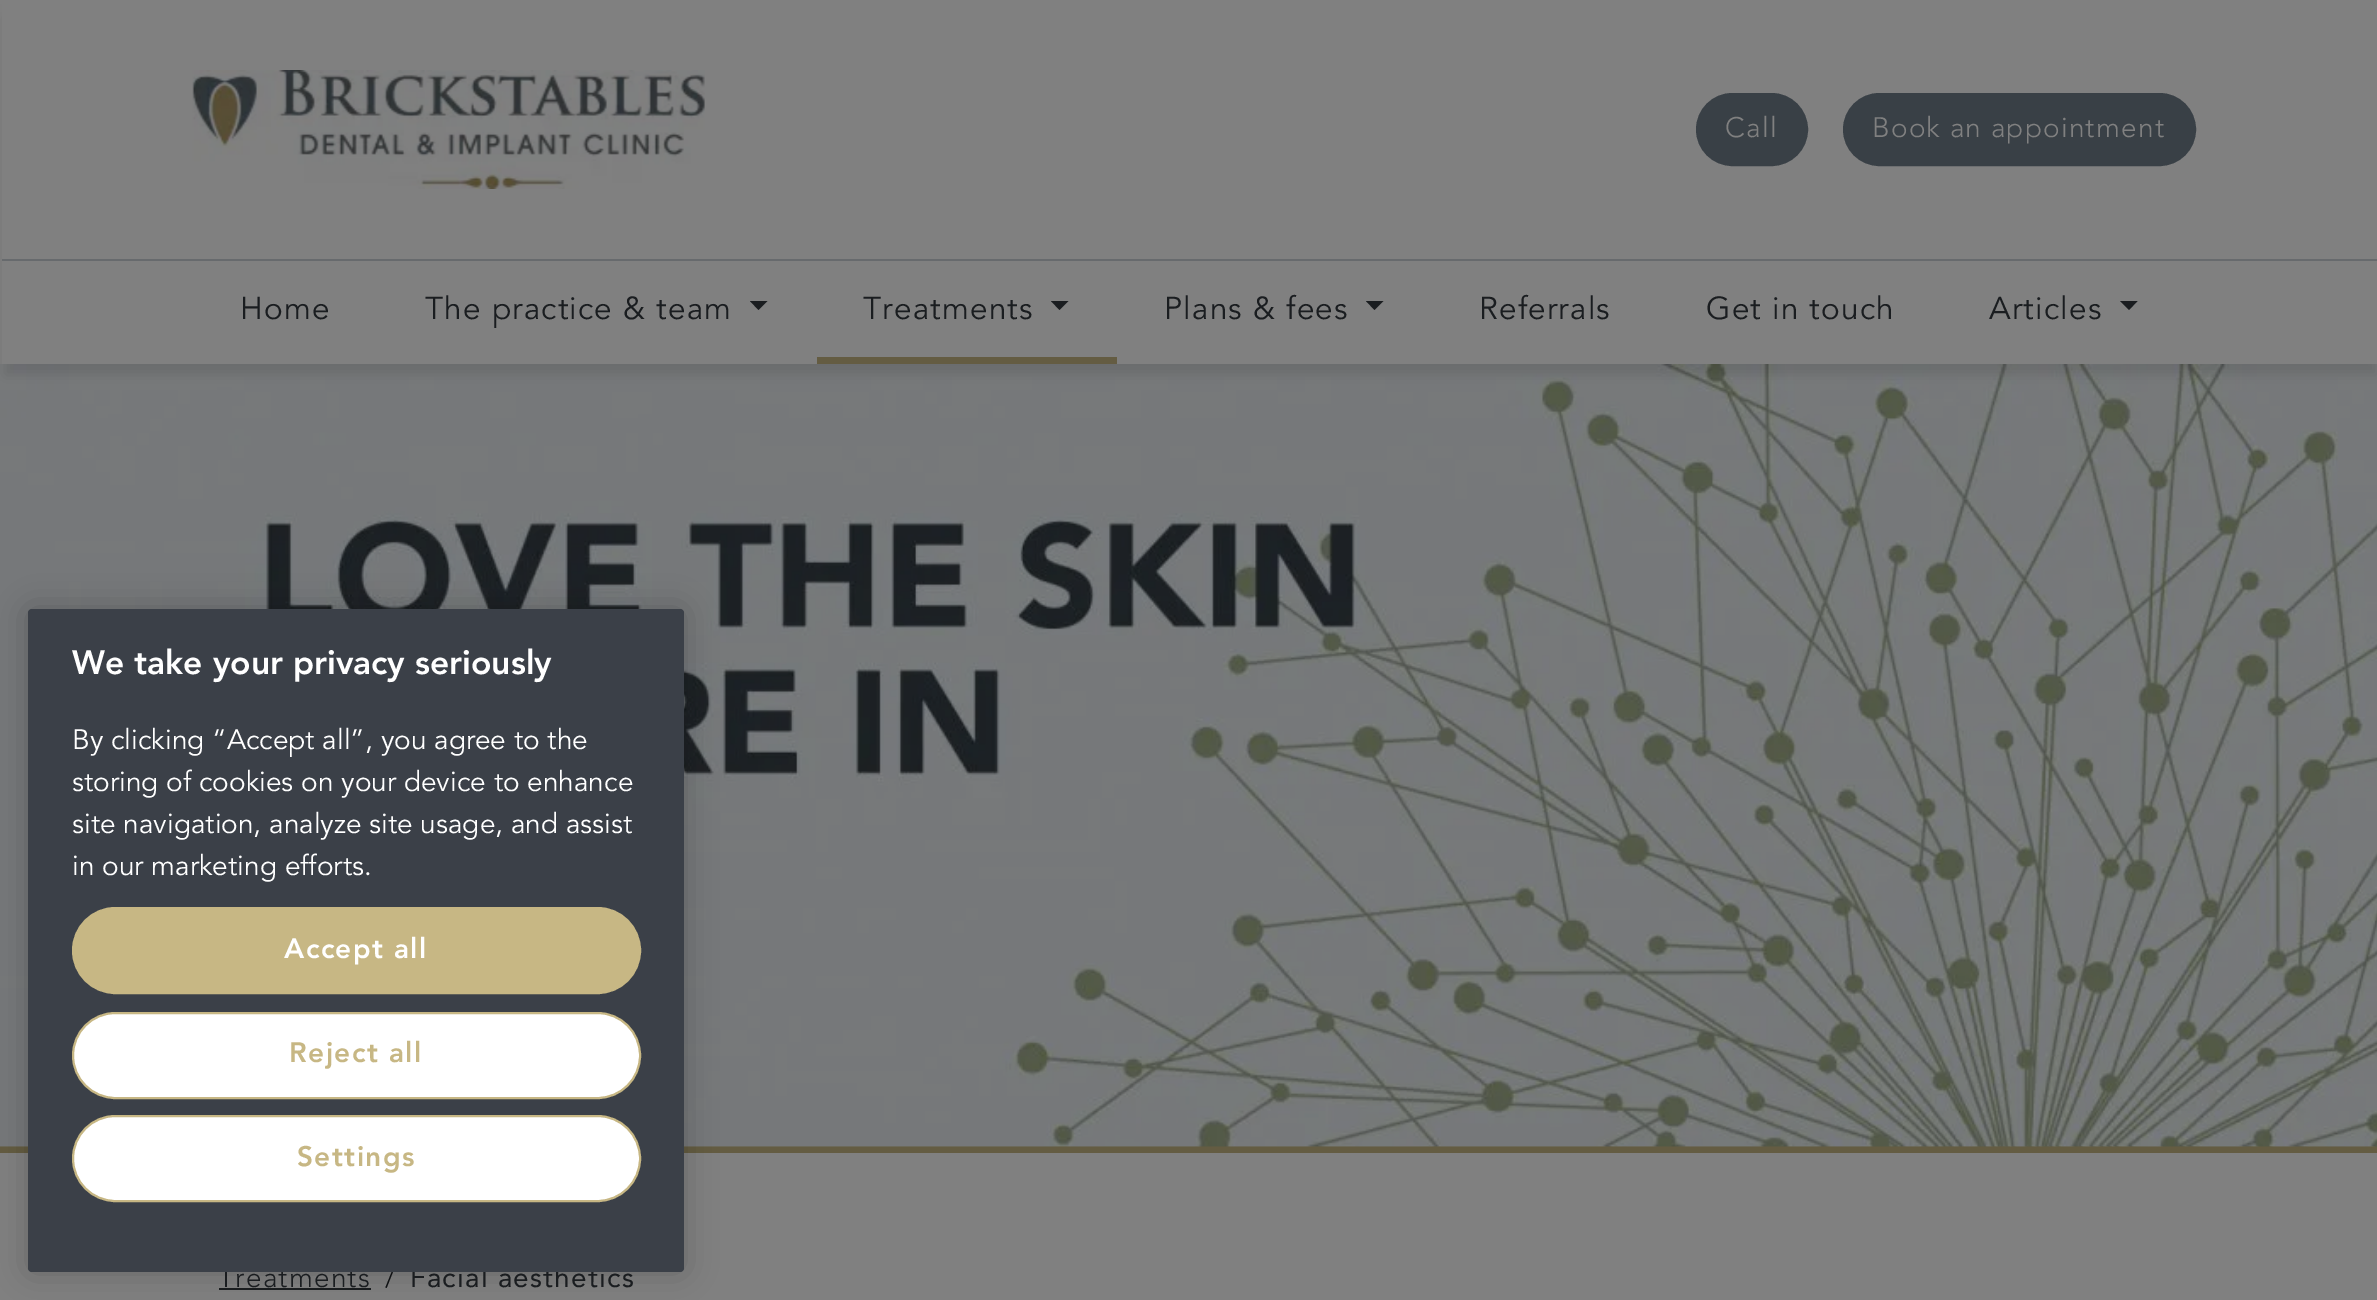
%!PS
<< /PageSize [2377 1300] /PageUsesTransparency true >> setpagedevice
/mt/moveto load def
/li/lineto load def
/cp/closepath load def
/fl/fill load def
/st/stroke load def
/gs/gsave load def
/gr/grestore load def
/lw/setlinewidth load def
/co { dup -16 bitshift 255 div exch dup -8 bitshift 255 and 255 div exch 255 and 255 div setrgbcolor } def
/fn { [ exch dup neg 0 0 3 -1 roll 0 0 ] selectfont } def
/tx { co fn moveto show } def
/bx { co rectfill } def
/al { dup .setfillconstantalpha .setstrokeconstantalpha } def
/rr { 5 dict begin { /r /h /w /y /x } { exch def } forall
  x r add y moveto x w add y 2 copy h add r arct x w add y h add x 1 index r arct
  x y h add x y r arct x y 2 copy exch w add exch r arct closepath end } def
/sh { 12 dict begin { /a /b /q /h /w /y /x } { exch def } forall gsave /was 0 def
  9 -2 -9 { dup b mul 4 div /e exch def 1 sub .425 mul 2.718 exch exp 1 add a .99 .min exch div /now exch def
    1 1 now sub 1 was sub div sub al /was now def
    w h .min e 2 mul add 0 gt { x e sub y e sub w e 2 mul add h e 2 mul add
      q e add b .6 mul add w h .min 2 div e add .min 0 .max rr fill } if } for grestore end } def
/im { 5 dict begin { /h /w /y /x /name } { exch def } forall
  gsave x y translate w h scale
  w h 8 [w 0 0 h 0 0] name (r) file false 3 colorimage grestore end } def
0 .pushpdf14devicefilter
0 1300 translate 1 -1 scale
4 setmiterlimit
0 0 2377 1300 16#808080 bx
0 1146 2377 7 16#645C42 bx
(media/2.raw) 0 1146 2377 1 im
(media/3.raw) 0 364 2377 783 im
gs
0 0 mt 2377 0 li 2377 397 li 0 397 li cp 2 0 mt 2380 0 li 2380 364 li 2 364 li cp eoclip newpath
16#000000 co
5 18 2372 357 0 7 .12 sh
gr
2 259 2375 2 16#676A6D bx
(media/1.raw) 192 70 513 119 im
16#394046 co
1697 94 110 71 35.5 rr gs fl gr
2 lw
st
1844 94 351 71 35.5 rr gs fl gr
st
16#1A1D20 co
750 301 mt 767.5 301 li 758.5 310 li cp fl
817 357 300 7 16#645C42 bx
16#1A1D20 co
1051 301 mt 1068.5 301 li 1059.5 310 li cp fl
1366 301 mt 1383.5 301 li 1374.5 310 li cp fl
2120 301 mt 2137.5 301 li 2129 310 li cp fl
219 1288 152 2 16#1A1D20 bx
16#000000 co
28 609 656 663 4 16 .2 sh
/Avenir-Regular 28 fn
16#808080 co
1725 137 mt 1.2 0 (Call) ashow
1872 137 mt 1.2 0 (Book an appointment) ashow
/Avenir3-Regular 31.5 fn
16#1A1D20 co
240 319 mt 1.2 0 (Home) ashow
425 319 mt 1.2 0 (The practice & team) ashow
863 319 mt 1.2 0 (Treatments) ashow
1164 319 mt 1.2 0 (Plans & fees) ashow
1479 319 mt 1.2 0 (Referrals) ashow
1706 319 mt 1.2 0 (Get in touch) ashow
1989 319 mt 1.2 0 (Articles) ashow
/Avenir-Regular 28 fn
218 1287 mt 1.2 0 (Treatments) ashow
16#111315 co
385 1287 mt 1.2 0 (/) ashow
/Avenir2-Regular 28 fn
16#1A1D20 co
410 1287 mt 1.2 0 (Facial aesthetics) ashow
16#3B4048 co
28 609 656 663 4 rr fl
16#FFFFFF co
73 1116 567 85 42.5 rr gs fl gr
16#C7B784 co
st
/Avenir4-Regular 28 fn
297 1166 mt 1.4 0 (Settings) ashow
16#FFFFFF co
73 1013 567 85 42.5 rr gs fl gr
16#C7B784 co
st
289 1062 mt 1.4 0 (Reject all) ashow
73 908 567 85 42.5 rr gs fl gr
st
16#FFFFFF co
284 958 mt 1.4 0 (Accept all) ashow
(in our marketing efforts.) 72 875 /Avenir3-Regular 28 16#FFFFFF tx
(site navigation, analyze site usage, and assist) 72 833 /Avenir3-Regular 28 16#FFFFFF tx
(storing of cookies on your device to enhance) 72 791 /Avenir3-Regular 28 16#FFFFFF tx
(By clicking “Accept all”, you agree to the) 72 749 /Avenir3-Regular 28 16#FFFFFF tx
(We take your privacy seriously) 72 674 /Avenir4-Regular 33.6 16#FFFFFF tx
.poppdf14devicefilter showpage
